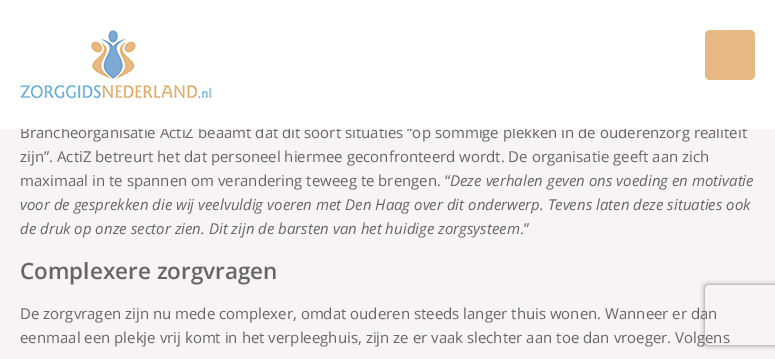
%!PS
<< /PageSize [775 359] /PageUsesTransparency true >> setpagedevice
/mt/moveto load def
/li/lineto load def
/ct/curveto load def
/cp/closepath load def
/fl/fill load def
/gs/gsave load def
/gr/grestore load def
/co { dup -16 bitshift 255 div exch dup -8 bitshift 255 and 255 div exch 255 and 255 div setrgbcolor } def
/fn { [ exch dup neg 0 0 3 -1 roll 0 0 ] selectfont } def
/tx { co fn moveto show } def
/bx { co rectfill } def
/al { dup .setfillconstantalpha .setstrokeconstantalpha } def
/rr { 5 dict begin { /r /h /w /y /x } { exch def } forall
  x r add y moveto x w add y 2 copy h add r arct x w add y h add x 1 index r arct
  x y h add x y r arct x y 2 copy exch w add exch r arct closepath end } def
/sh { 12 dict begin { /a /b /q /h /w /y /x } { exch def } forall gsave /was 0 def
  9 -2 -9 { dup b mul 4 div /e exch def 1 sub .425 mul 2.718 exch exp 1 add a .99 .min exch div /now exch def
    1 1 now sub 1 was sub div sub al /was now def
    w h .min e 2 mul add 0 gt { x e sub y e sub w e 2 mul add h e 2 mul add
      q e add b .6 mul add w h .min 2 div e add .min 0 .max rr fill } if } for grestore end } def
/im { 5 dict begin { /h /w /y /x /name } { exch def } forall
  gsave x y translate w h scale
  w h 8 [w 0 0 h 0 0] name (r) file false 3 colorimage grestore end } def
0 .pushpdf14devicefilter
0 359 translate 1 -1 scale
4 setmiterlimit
0 0 775 359 16#F6F4F5 bx
gs
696 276 mt 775 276 li 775 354 li 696 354 li cp 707 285 mt 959 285 li 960 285 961 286 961 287 ct 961 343 li 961 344 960 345 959 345 ct 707 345 li 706 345 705 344 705 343 ct 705 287 li 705 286 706 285 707 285 ct cp eoclip newpath
16#808080 co
705 285 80 60 2 2.5 1 sh
gr
(Brancheorganisatie ActiZ beaamt dat dit soort situaties “op sommige plekken in de ouderenzorg realiteit) 20 138 /OpenSans-Regular 15 16#666666 tx
0 0 775 129 16#FFFFFF bx
16#E7B883 co
705 30 50 50 5 rr fl
(media/1.raw) 20 30 192 69 im
(zijn”. ActiZ betreurt het dat personeel hiermee geconfronteerd wordt. De organisatie geeft aan zich) 20 162 /OpenSans-Regular 15 16#666666 tx
(maximaal in te spannen om verandering teweeg te brengen. “) 20 186 /OpenSans-Regular 15 16#666666 tx
(Deze verhalen geven ons voeding en motivatie) 450 186 /OpenSans-Italic 15 16#666666 tx
(voor de gesprekken die wij veelvuldig voeren met Den Haag over dit onderwerp. Tevens laten deze situaties ook) 20 210 /OpenSans-Italic 15 16#666666 tx
(de druk op onze sector zien. Dit zijn de barsten van het huidige zorgsysteem) 20 234 /OpenSans-Italic 15 16#666666 tx
(.”) 520 234 /OpenSans-Regular 15 16#666666 tx
(Complexere zorgvragen) 20 279 /OpenSans-SemiBold 22.5 16#666666 tx
(De zorgvragen zijn nu mede complexer, omdat ouderen steeds langer thuis wonen. Wanneer er dan) 20 319 /OpenSans-Regular 15 16#666666 tx
(eenmaal een plekje vrij komt in het verpleeghuis, zijn ze er vaak slechter aan toe dan vroeger. Volgens) 20 343 /OpenSans-Regular 15 16#666666 tx
.poppdf14devicefilter showpage
